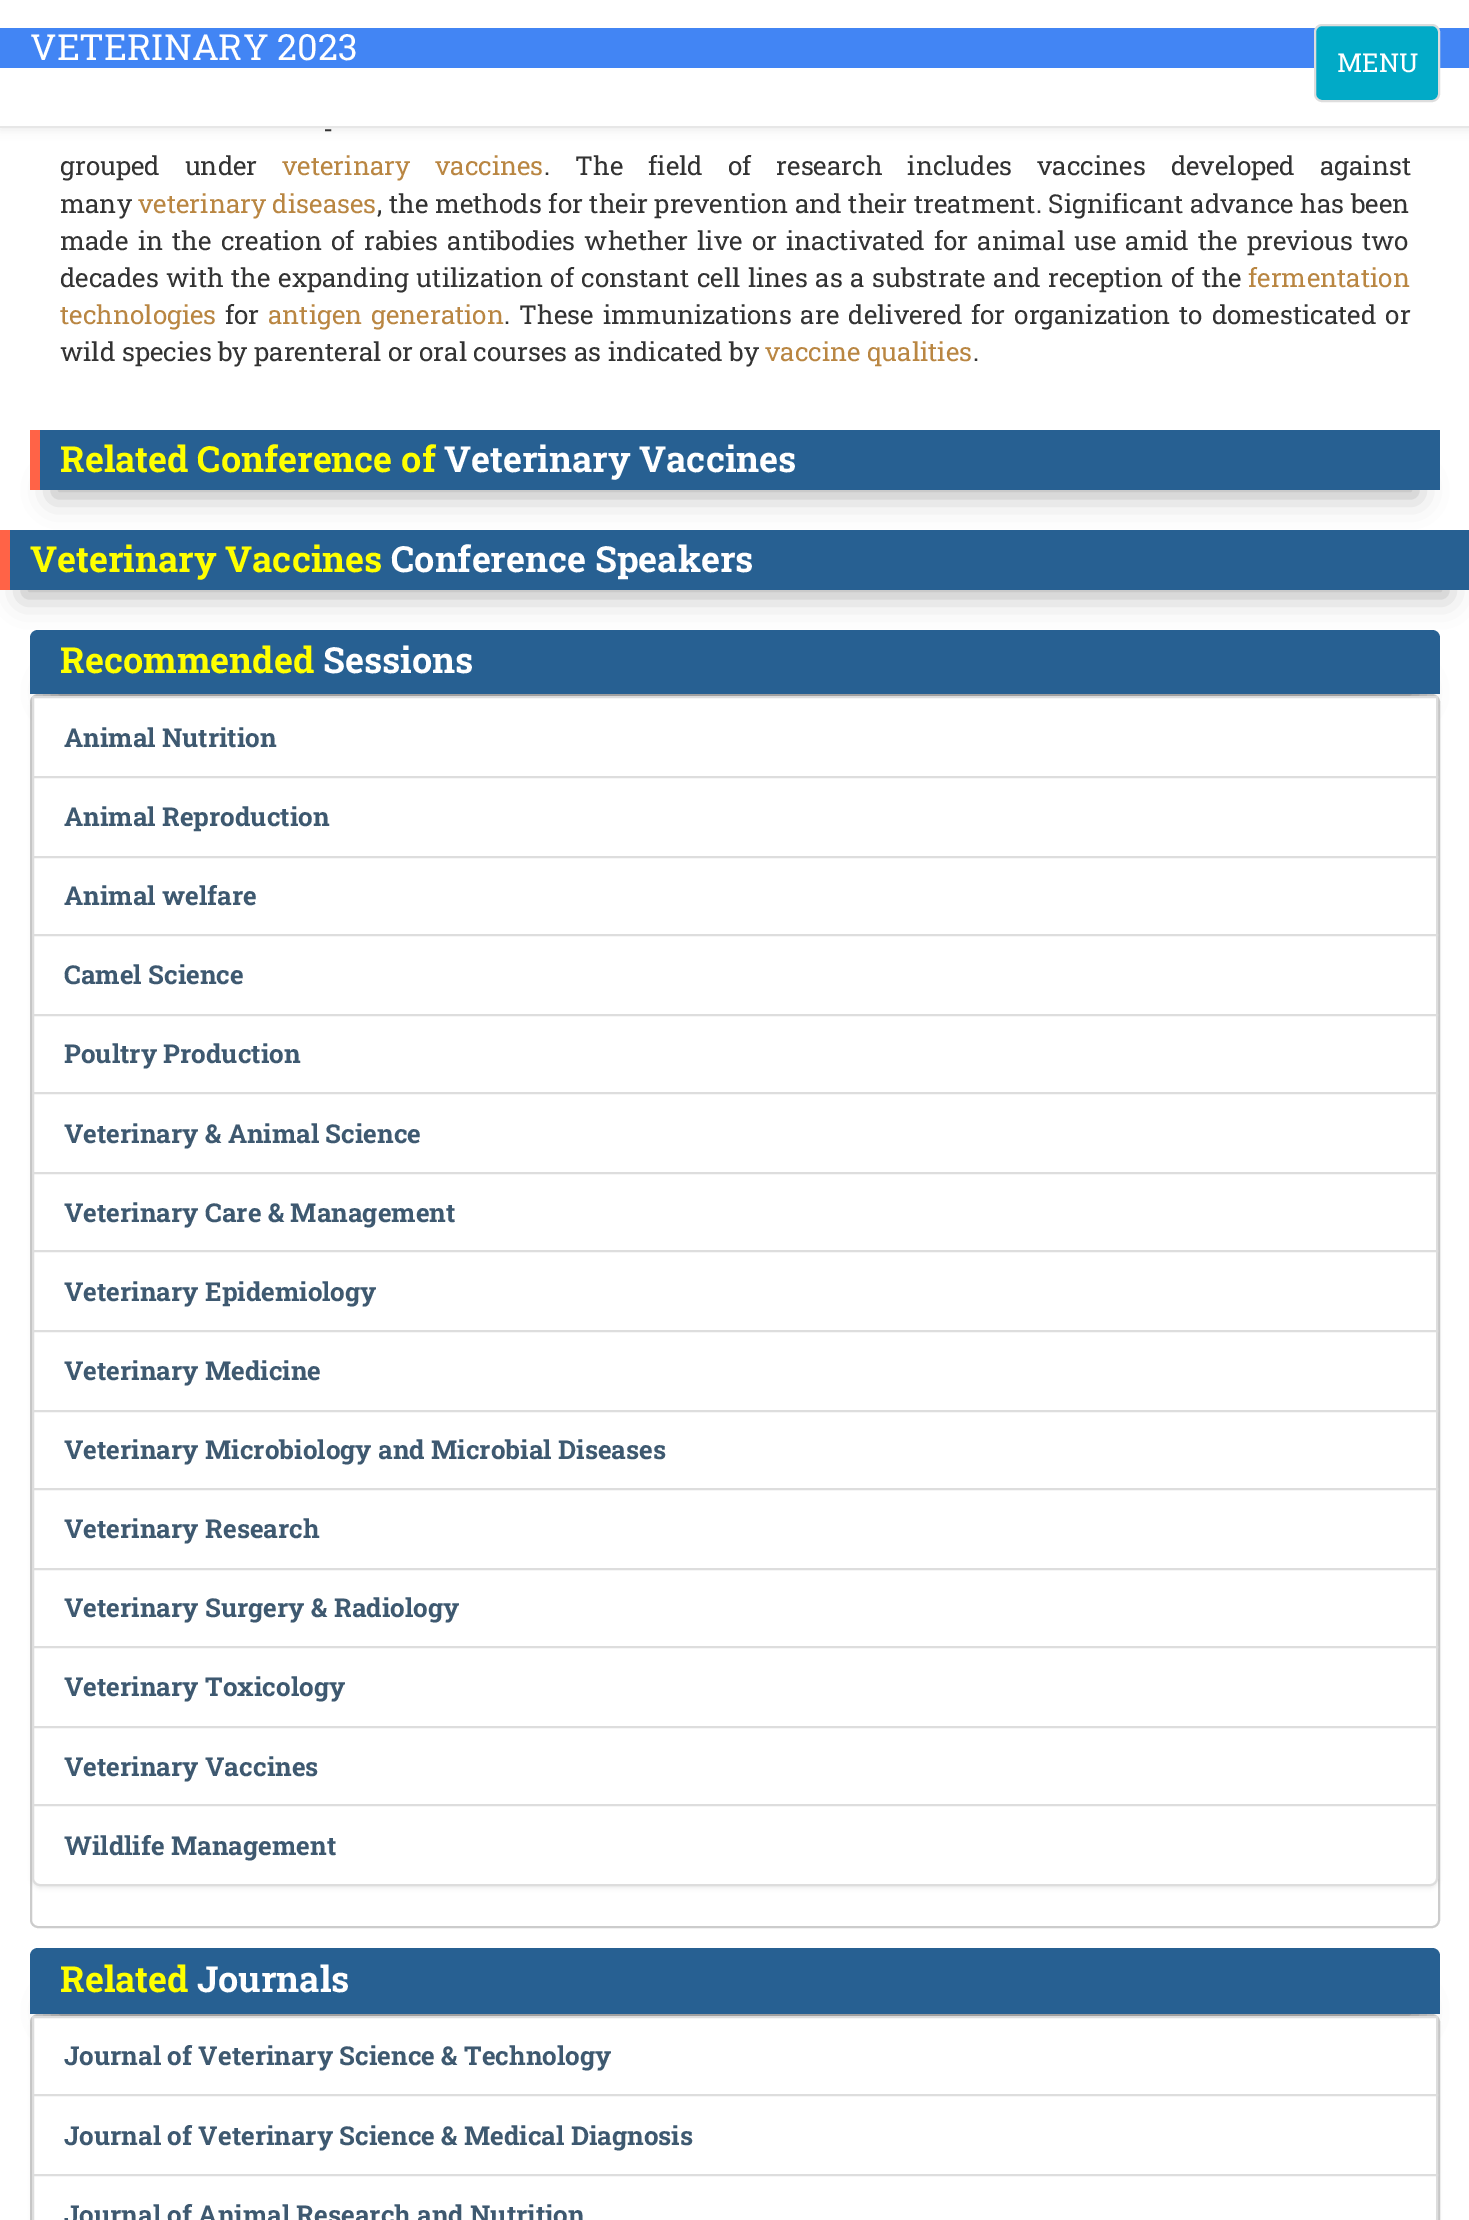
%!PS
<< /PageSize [1469 2220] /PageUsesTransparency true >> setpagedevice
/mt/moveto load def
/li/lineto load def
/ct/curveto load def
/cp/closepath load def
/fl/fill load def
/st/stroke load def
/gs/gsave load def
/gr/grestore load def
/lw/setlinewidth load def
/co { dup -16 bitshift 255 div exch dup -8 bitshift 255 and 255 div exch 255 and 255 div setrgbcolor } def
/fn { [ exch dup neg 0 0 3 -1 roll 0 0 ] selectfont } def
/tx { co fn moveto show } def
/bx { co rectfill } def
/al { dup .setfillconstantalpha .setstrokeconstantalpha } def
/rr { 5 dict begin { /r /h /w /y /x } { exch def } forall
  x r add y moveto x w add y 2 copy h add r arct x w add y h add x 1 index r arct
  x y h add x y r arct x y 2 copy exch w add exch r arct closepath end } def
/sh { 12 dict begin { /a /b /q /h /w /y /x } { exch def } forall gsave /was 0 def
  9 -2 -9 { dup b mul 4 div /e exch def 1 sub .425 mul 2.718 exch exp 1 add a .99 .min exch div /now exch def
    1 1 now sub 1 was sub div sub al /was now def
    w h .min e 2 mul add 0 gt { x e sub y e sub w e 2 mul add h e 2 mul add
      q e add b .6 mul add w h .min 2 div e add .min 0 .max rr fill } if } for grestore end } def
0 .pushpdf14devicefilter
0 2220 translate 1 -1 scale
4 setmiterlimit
0 0 1469 2220 16#FFFFFF bx
16#000000 co
0 2 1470 128 0 5 .07 sh
0 126 1469 2 16#E7E7E7 bx
0 0 1469 126 16#FFFFFF bx
0 28 1469 40 16#4285F4 bx
16#01AAC7 co
1315 25 124 76 7 rr gs fl gr
16#DDDDDD co
2 lw
st
16#000000 co
54 484 1362 12 0 15 .3 sh
40 430 1400 60 16#276092 bx
30 430 10 60 16#FF6347 bx
16#000000 co
24 584 1422 12 0 15 .3 sh
10 530 1459 60 16#276092 bx
0 530 10 60 16#FF6347 bx
16#CCCCCC co
31 695 1408 1232 7 rr st
16#000000 co
54 684 1362 16 0 15 .3 sh
32 698 1406 1190 8 2 .07 sh
16#276092 co
38 630 mt 1432 630 li 1436.5 630 1440 633.5 1440 638 ct 1440 694 li 30 694 li 30 638 li 30 633.5 33.5 630 38 630 ct cp fl
16#FFFFFF co
33 697 mt 1437 697 li 1437 777 li 33 777 li cp gs fl gr
16#DDDDDD co
st
16#FFFFFF co
33 777 mt 1437 777 li 1437 857 li 33 857 li cp gs fl gr
16#DDDDDD co
st
16#FFFFFF co
33 857 mt 1437 857 li 1437 935 li 33 935 li cp gs fl gr
16#DDDDDD co
st
16#FFFFFF co
33 935 mt 1437 935 li 1437 1015 li 33 1015 li cp gs fl gr
16#DDDDDD co
st
16#FFFFFF co
33 1015 mt 1437 1015 li 1437 1093 li 33 1093 li cp gs fl gr
16#DDDDDD co
st
16#FFFFFF co
33 1093 mt 1437 1093 li 1437 1173 li 33 1173 li cp gs fl gr
16#DDDDDD co
st
16#FFFFFF co
33 1173 mt 1437 1173 li 1437 1251 li 33 1251 li cp gs fl gr
16#DDDDDD co
st
16#FFFFFF co
33 1251 mt 1437 1251 li 1437 1331 li 33 1331 li cp gs fl gr
16#DDDDDD co
st
16#FFFFFF co
33 1331 mt 1437 1331 li 1437 1411 li 33 1411 li cp gs fl gr
16#DDDDDD co
st
16#FFFFFF co
33 1411 mt 1437 1411 li 1437 1489 li 33 1489 li cp gs fl gr
16#DDDDDD co
st
16#FFFFFF co
33 1489 mt 1437 1489 li 1437 1569 li 33 1569 li cp gs fl gr
16#DDDDDD co
st
16#FFFFFF co
33 1569 mt 1437 1569 li 1437 1647 li 33 1647 li cp gs fl gr
16#DDDDDD co
st
16#FFFFFF co
33 1647 mt 1437 1647 li 1437 1727 li 33 1727 li cp gs fl gr
16#DDDDDD co
st
16#FFFFFF co
33 1727 mt 1437 1727 li 1437 1805 li 33 1805 li cp gs fl gr
16#DDDDDD co
st
16#FFFFFF co
33 1805 mt 1437 1805 li 1437 1878 li 1437 1882 1434 1885 1430 1885 ct 40 1885 li 36 1885 33 1882 33 1878 ct cp gs fl gr
16#DDDDDD co
st
16#CCCCCC co
31 2015 1408 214 7 rr st
16#000000 co
54 2002 1362 18 0 15 .3 sh
32 2018 1406 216 8 2 .07 sh
16#276092 co
38 1948 mt 1432 1948 li 1436.5 1948 1440 1951.5 1440 1956 ct 1440 2014 li 30 2014 li 30 1956 li 30 1951.5 33.5 1948 38 1948 ct cp fl
16#FFFFFF co
33 2017 mt 1437 2017 li 1437 2095 li 33 2095 li cp gs fl gr
16#DDDDDD co
st
16#FFFFFF co
33 2095 mt 1437 2095 li 1437 2175 li 33 2175 li cp gs fl gr
16#DDDDDD co
st
16#FFFFFF co
33 2175 mt 1437 2175 li 1437 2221 li 33 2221 li cp gs fl gr
16#DDDDDD co
st
(VETERINARY 2023) 30 60 /RobotoSlab-Regular 36 16#FFFFFF tx
(MENU) 1337 72 /RobotoSlab-Regular 26 16#FFFFFF tx
16#333333 co
323 138 mt 3 0 32 (-) widthshow
60 175 mt 18.5 0 32 (grouped under) widthshow
16#B98642 co
282 175 mt 18.5 0 32 (veterinary vaccines) widthshow
16#333333 co
544 175 mt 18.5 0 32 (. The field of research includes vaccines developed against) widthshow
(many) 60 213 /RobotoSlab-Regular 26 16#333333 tx
(veterinary diseases) 138 213 /RobotoSlab-Regular 26 16#B98642 tx
16#333333 co
377 213 mt .1 0 32 (, the methods for their prevention and their treatment. Significant advance has been) widthshow
60 250 mt 2.75 0 32 (made in the creation of rabies antibodies whether live or inactivated for animal use amid the previous two) widthshow
60 287 mt 1.1 0 32 (decades with the expanding utilization of constant cell lines as a substrate and reception of the) widthshow
(fermentation) 1248 287 /RobotoSlab-Regular 26 16#B98642 tx
(technologies) 60 324 /RobotoSlab-Regular 26 16#B98642 tx
(for) 225 324 /RobotoSlab-Regular 26 16#333333 tx
16#B98642 co
268 324 mt 2.5 0 32 (antigen generation) widthshow
16#333333 co
504 324 mt 2.5 0 32 (. These immunizations are delivered for organization to domesticated or) widthshow
(wild species by parenteral or oral courses as indicated by) 60 361 /RobotoSlab-Regular 26 16#333333 tx
(vaccine qualities) 765 361 /RobotoSlab-Regular 26 16#B98642 tx
(.) 973 361 /RobotoSlab-Regular 26 16#333333 tx
(Related Conference of) 60 472 /RobotoSlab-Bold 36 16#FFFF00 tx
(Veterinary Vaccines) 444 472 /RobotoSlab-Bold 36 16#FFFFFF tx
(Veterinary Vaccines) 30 572 /RobotoSlab-Bold 36 16#FFFF00 tx
(Conference Speakers) 391 572 /RobotoSlab-Bold 36 16#FFFFFF tx
(Recommended) 60 673 /RobotoSlab-Bold 36 16#FFFF00 tx
(Sessions) 323 673 /RobotoSlab-Bold 36 16#FFFFFF tx
(Animal Nutrition) 64 747 /RobotoSlab-Bold 26 16#3E5970 tx
(Animal Reproduction) 64 826 /RobotoSlab-Bold 26 16#3E5970 tx
(Animal welfare) 64 905 /RobotoSlab-Bold 26 16#3E5970 tx
(Camel Science) 64 984 /RobotoSlab-Bold 26 16#3E5970 tx
(Poultry Production) 64 1063 /RobotoSlab-Bold 26 16#3E5970 tx
(Veterinary & Animal Science) 64 1143 /RobotoSlab-Bold 26 16#3E5970 tx
(Veterinary Care & Management) 64 1222 /RobotoSlab-Bold 26 16#3E5970 tx
(Veterinary Epidemiology) 64 1301 /RobotoSlab-Bold 26 16#3E5970 tx
(Veterinary Medicine) 64 1380 /RobotoSlab-Bold 26 16#3E5970 tx
(Veterinary Microbiology and Microbial Diseases) 64 1459 /RobotoSlab-Bold 26 16#3E5970 tx
(Veterinary Research) 64 1538 /RobotoSlab-Bold 26 16#3E5970 tx
(Veterinary Surgery & Radiology) 64 1617 /RobotoSlab-Bold 26 16#3E5970 tx
(Veterinary Toxicology) 64 1696 /RobotoSlab-Bold 26 16#3E5970 tx
(Veterinary Vaccines) 64 1776 /RobotoSlab-Bold 26 16#3E5970 tx
(Wildlife Management) 64 1855 /RobotoSlab-Bold 26 16#3E5970 tx
(Related) 60 1992 /RobotoSlab-Bold 36 16#FFFF00 tx
(Journals) 197 1992 /RobotoSlab-Bold 36 16#FFFFFF tx
(Journal of Veterinary Science & Technology) 64 2065 /RobotoSlab-Bold 26 16#3E5970 tx
(Journal of Veterinary Science & Medical Diagnosis) 64 2145 /RobotoSlab-Bold 26 16#3E5970 tx
(Journal of Animal Research and Nutrition) 64 2224 /RobotoSlab-Bold 26 16#3E5970 tx
.poppdf14devicefilter showpage
